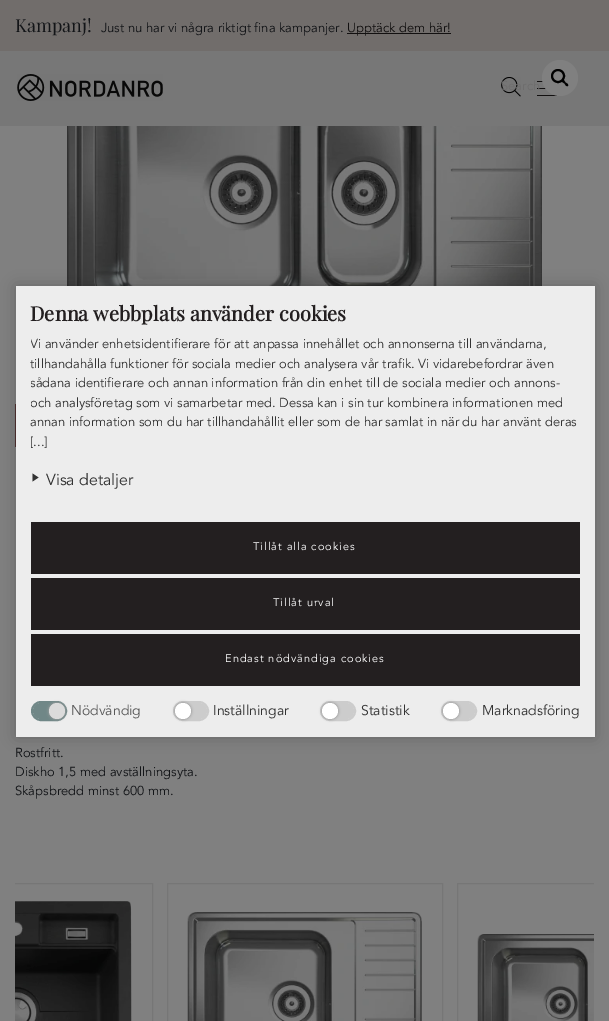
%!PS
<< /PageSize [609 1021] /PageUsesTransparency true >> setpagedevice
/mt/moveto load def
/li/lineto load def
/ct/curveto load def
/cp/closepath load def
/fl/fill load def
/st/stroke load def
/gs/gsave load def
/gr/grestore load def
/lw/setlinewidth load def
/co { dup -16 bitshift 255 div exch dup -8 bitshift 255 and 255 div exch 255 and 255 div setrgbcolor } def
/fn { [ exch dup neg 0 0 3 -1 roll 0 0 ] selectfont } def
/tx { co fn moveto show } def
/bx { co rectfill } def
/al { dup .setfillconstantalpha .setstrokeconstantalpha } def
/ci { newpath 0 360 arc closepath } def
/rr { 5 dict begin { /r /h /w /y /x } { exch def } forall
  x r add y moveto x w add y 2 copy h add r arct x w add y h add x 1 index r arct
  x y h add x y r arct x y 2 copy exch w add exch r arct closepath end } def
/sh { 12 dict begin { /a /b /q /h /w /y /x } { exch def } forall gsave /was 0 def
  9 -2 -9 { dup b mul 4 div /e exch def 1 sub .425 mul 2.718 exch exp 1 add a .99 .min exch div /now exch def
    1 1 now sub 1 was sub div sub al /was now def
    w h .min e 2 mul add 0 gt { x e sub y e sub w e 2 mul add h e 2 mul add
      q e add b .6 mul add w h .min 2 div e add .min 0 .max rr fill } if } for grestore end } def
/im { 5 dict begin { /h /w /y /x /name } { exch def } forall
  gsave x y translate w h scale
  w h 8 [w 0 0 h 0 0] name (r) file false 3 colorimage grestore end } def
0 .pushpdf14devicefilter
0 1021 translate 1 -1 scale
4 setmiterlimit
0 0 609 1021 16#808080 bx
0 0 609 51 16#716D6B bx
347 33 104 1 16#121010 bx
0 51 609 75 16#777777 bx
(media/1.raw) 17 74 146 27 im
(media/2.raw) 501 77 20 20 im
16#121010 co
537 81 22 1 .5 rr fl
537 88 22 1 .5 rr fl
537 95 22 1 .5 rr fl
(media/3.raw) 67 126 475 160 im
15 404 1 43 16#4F2F2F bx
16#000000 co
16 286 579 451 0 7.5 .2 sh
16 286 579 451 16#EDEDED bx
16#333333 co
32.5 481.5 mt 32.5 473.5 li 38.5 477.5 li cp fl
31 522 549 52 16#231F20 bx
31 578 549 52 16#231F20 bx
31 634 549 52 16#231F20 bx
16#708787 co
2 lw
32 702 34 18 9 rr st
33 703 32 16 8 rr fl
16#A5A5A5 co
49 703 16 16 8 1.5 1 sh
16#DBDBDB co
57 711 8 ci fl
16#CCCCCC co
174 702 34 18 9 rr st
175 703 32 16 8 rr fl
16#888888 co
175 703 16 16 8 1.5 1 sh
16#FFFFFF co
183 711 8 ci fl
16#CCCCCC co
321 702 34 18 9 rr st
322 703 32 16 8 rr fl
16#888888 co
322 703 16 16 8 1.5 1 sh
16#FFFFFF co
330 711 8 ci fl
16#CCCCCC co
442 702 34 18 9 rr st
443 703 32 16 8 rr fl
16#888888 co
443 703 16 16 8 1.5 1 sh
16#FFFFFF co
451 711 8 ci fl
16#808080 co
560 78 18 ci fl
16#000000 co
558 76 6 ci st
562 80 mt 563.5 79 565 81.5 565.5 82.5 ct 566.5 83 569 84.5 568 86 ct 566.5 87 565 84.5 564.5 83.5 ct 563.5 83 561 81.5 562 80 ct cp fl
gs
15 883 579 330 rectclip
16#767676 co
1 lw
-.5 883.5 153 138 rectstroke
gr
(media/4.raw) 15 901 117 120 im
16#767676 co
1 lw
167.5 883.5 275 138 rectstroke
(media/5.raw) 187 912 235 109 im
gs
15 883 579 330 rectclip
457.5 883.5 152 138 rectstroke
gr
(media/6.raw) 477 934 117 87 im
(Kampanj!) 15 32 /PlayfairDisplay-Regular 18 16#131518 tx
(Just nu har vi några riktigt fina kampanjer.) 101 32 /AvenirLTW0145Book-Regular 13 16#131518 tx
(Upptäck dem här!) 347 32 /AvenirLTW0145Book-Regular 13 16#121010 tx
(Search) 501 90 /AvenirLTW0145Book-Regular 13 16#6E6D6D tx
(Denna webbplats använder cookies) 30 321 /PlayfairDisplay-Bold 20 16#231F20 tx
gs
31 336 549 117 rectclip
(Vi använder enhetsidentifierare för att anpassa innehållet och annonserna till användarna,) 30 348 /AvenirLTW0145Book-Regular 13 16#333333 tx
gr
(tillhandahålla funktioner för sociala medier och analysera vår trafik. Vi vidarebefordrar även) 30 368 /AvenirLTW0145Book-Regular 13 16#333333 tx
gs
31 336 549 117 rectclip
(sådana identifierare och annan information från din enhet till de sociala medier och annons-) 30 387 /AvenirLTW0145Book-Regular 13 16#333333 tx
(och analysföretag som vi samarbetar med. Dessa kan i sin tur kombinera informationen med) 30 407 /AvenirLTW0145Book-Regular 13 16#333333 tx
gr
(annan information som du har tillhandahållit eller som de har samlat in när du har använt deras) 30 426 /AvenirLTW0145Book-Regular 13 16#333333 tx
gs
31 336 549 117 rectclip
([...]) 30 446 /AvenirLTW0145Book-Regular 13 16#333333 tx
gr
(Visa detaljer) 46 485 /AvenirLTW0145Book-Regular 16 16#333333 tx
/AvenirLTW0145Book-Regular 11 fn
16#FFFFFF co
253 550 mt 1 0 (Tillåt alla cookies) ashow
273 606 mt 1 0 (Tillåt urval) ashow
225 662 mt 1 0 (Endast nödvändiga cookies) ashow
(Nödvändig) 71 715 /AvenirLTW0145Book-Regular 14 16#585858 tx
(Inställningar) 213 715 /AvenirLTW0145Book-Regular 14 16#333333 tx
(Statistik) 361 715 /AvenirLTW0145Book-Regular 14 16#333333 tx
(Marknadsföring) 482 715 /AvenirLTW0145Book-Regular 14 16#333333 tx
(Rostfritt.) 15 757 /AvenirLTW0145Book-Regular 13 16#131518 tx
(Diskho 1,5 med avställningsyta.) 15 776 /AvenirLTW0145Book-Regular 13 16#131518 tx
(Skåpsbredd minst 600 mm.) 15 795 /AvenirLTW0145Book-Regular 13 16#131518 tx
.poppdf14devicefilter showpage
